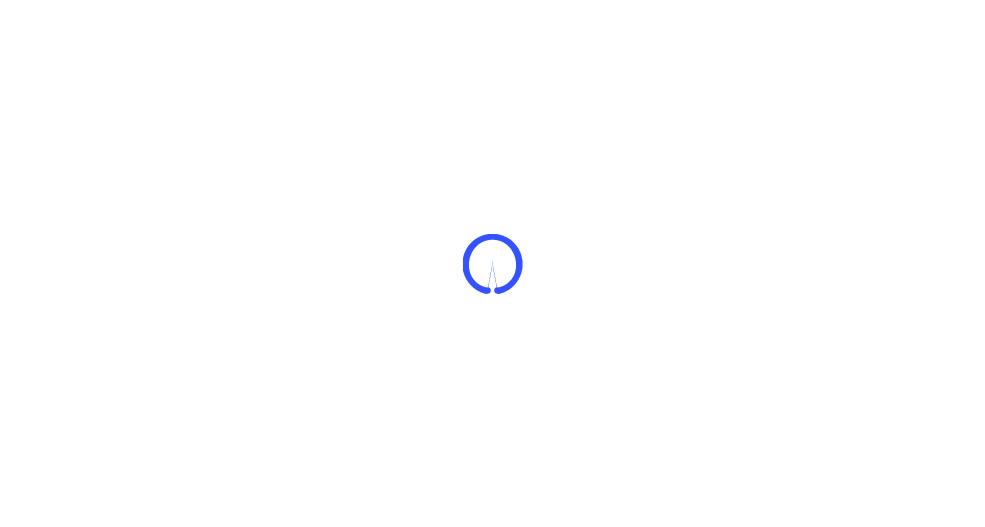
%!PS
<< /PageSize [985 527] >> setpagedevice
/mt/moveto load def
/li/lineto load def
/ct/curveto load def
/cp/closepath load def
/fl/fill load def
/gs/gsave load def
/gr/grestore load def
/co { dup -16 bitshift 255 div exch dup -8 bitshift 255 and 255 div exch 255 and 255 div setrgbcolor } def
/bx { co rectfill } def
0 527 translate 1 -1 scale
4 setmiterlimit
0 0 985 527 16#FFFFFF bx
gs
463 234 30 60 rectclip
16#3452FF co
498 234 mt 487 294 li 471 291 460 275 463 259 ct 466 242 481 232 498 234 ct cp 497 240 mt 488 288 li 457 282 466 235 497 240 ct cp eofill
gr
16#3452FF co
488.5 287.5 mt 492 288.5 491 294 487.5 293.5 ct 483.5 293 484.5 287 488.5 287.5 ct cp fl
gs
493 234 30 60 rectclip
487 234 mt 504 232 519 242 522 259 ct 525 275 514 291 498 294 ct cp 488 240 mt 519 235 528 282 497 288 ct cp eofill
gr
496.5 287.5 mt 500.5 287 501.5 293 497.5 293.5 ct 494 294 493 288.5 496.5 287.5 ct cp fl
showpage
